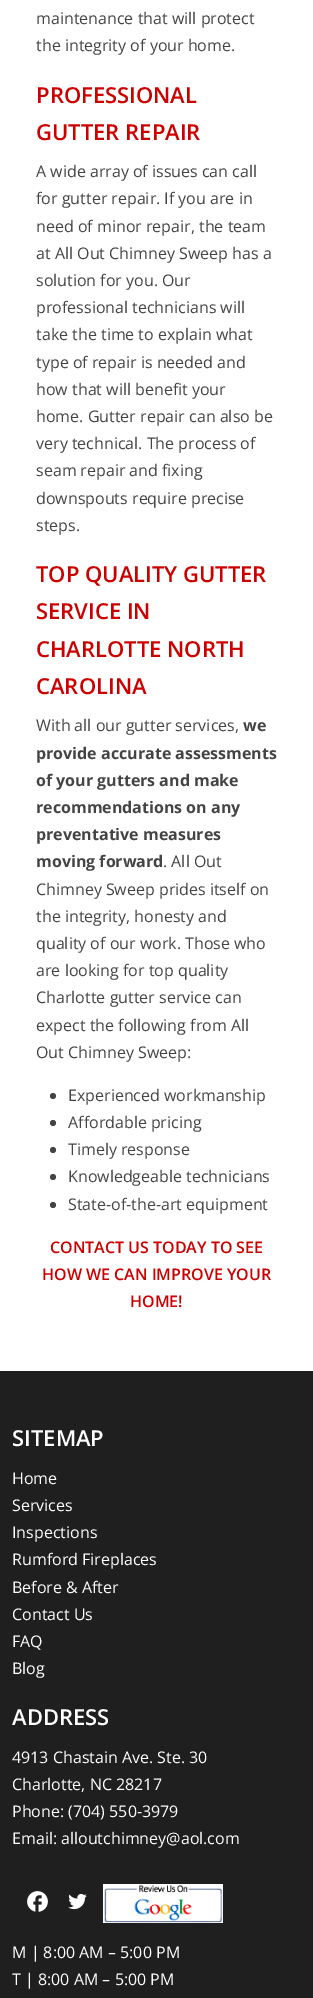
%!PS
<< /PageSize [313 1998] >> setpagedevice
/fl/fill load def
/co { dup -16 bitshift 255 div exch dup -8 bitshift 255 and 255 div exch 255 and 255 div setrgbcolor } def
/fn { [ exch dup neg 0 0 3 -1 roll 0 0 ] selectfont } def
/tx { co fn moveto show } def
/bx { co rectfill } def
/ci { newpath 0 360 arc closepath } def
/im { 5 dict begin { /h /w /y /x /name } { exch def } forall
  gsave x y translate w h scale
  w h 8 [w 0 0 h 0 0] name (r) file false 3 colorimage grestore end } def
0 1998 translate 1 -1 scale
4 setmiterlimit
0 0 313 1998 16#FFFFFF bx
16#444444 co
53 1096 3 ci fl
53 1123 3 ci fl
53 1150 3 ci fl
53 1177 3 ci fl
53 1205 3 ci fl
0 1371 313 627 16#1F1F1F bx
(media/1.raw) 27 1891 21 21 im
(media/2.raw) 68 1893 19 17 im
103 1884 1 39 16#FFFFFF bx
(media/3.raw) 104 1884 119 39 im
(maintenance that will protect) 36 24 /OpenSans-Regular 16 16#444444 tx
(the integrity of your home.) 36 51 /OpenSans-Regular 16 16#444444 tx
(PROFESSIONAL) 36 103 /OpenSans-SemiBold 22 16#CD0000 tx
(GUTTER REPAIR) 36 140 /OpenSans-SemiBold 22 16#CD0000 tx
(A wide array of issues can call) 36 177 /OpenSans-Regular 16 16#444444 tx
(for gutter repair. If you are in) 36 204 /OpenSans-Regular 16 16#444444 tx
(need of minor repair, the team) 36 232 /OpenSans-Regular 16 16#444444 tx
(at All Out Chimney Sweep has a) 36 259 /OpenSans-Regular 16 16#444444 tx
(solution for you. Our) 36 286 /OpenSans-Regular 16 16#444444 tx
(professional technicians will) 36 313 /OpenSans-Regular 16 16#444444 tx
(take the time to explain what) 36 340 /OpenSans-Regular 16 16#444444 tx
(type of repair is needed and) 36 368 /OpenSans-Regular 16 16#444444 tx
(how that will benefit your) 36 395 /OpenSans-Regular 16 16#444444 tx
(home. Gutter repair can also be) 36 422 /OpenSans-Regular 16 16#444444 tx
(very technical. The process of) 36 449 /OpenSans-Regular 16 16#444444 tx
(seam repair and fixing) 36 476 /OpenSans-Regular 16 16#444444 tx
(downspouts require precise) 36 504 /OpenSans-Regular 16 16#444444 tx
(steps.) 36 531 /OpenSans-Regular 16 16#444444 tx
(TOP QUALITY GUTTER) 36 582 /OpenSans-SemiBold 22 16#CD0000 tx
(SERVICE IN) 36 619 /OpenSans-SemiBold 22 16#CD0000 tx
(CHARLOTTE NORTH) 36 657 /OpenSans-SemiBold 22 16#CD0000 tx
(CAROLINA) 36 694 /OpenSans-SemiBold 22 16#CD0000 tx
(With all our gutter services,) 36 731 /OpenSans-Regular 16 16#444444 tx
(we) 243 731 /OpenSans-Bold 16 16#444444 tx
(provide accurate assessments) 36 759 /OpenSans-Bold 16 16#444444 tx
(of your gutters and make) 36 786 /OpenSans-Bold 16 16#444444 tx
(recommendations on any) 36 813 /OpenSans-Bold 16 16#444444 tx
(preventative measures) 36 840 /OpenSans-Bold 16 16#444444 tx
(moving forward) 36 867 /OpenSans-Bold 16 16#444444 tx
(. All Out) 163 867 /OpenSans-Regular 16 16#444444 tx
(Chimney Sweep prides itself on) 36 895 /OpenSans-Regular 16 16#444444 tx
(the integrity, honesty and) 36 922 /OpenSans-Regular 16 16#444444 tx
(quality of our work. Those who) 36 949 /OpenSans-Regular 16 16#444444 tx
(are looking for top quality) 36 976 /OpenSans-Regular 16 16#444444 tx
(Charlotte gutter service can) 36 1003 /OpenSans-Regular 16 16#444444 tx
(expect the following from All) 36 1031 /OpenSans-Regular 16 16#444444 tx
(Out Chimney Sweep:) 36 1058 /OpenSans-Regular 16 16#444444 tx
(Experienced workmanship) 68 1101 /OpenSans-Regular 16 16#444444 tx
(Affordable pricing) 68 1128 /OpenSans-Regular 16 16#444444 tx
(Timely response) 68 1155 /OpenSans-Regular 16 16#444444 tx
(Knowledgeable technicians) 68 1182 /OpenSans-Regular 16 16#444444 tx
(State-of-the-art equipment) 68 1210 /OpenSans-Regular 16 16#444444 tx
(CONTACT US TODAY TO SEE) 50 1253 /OpenSans-SemiBold 16 16#CD0000 tx
(HOW WE CAN IMPROVE YOUR) 42 1280 /OpenSans-SemiBold 16 16#CD0000 tx
(HOME!) 130 1307 /OpenSans-SemiBold 16 16#CD0000 tx
(SITEMAP) 12 1446 /OpenSans-SemiBold 22 16#FFFFFF tx
(Home) 12 1484 /OpenSans-Regular 16 16#FFFFFF tx
(Services) 12 1511 /OpenSans-Regular 16 16#FFFFFF tx
(Inspections) 12 1538 /OpenSans-Regular 16 16#FFFFFF tx
(Rumford Fireplaces) 12 1565 /OpenSans-Regular 16 16#FFFFFF tx
(Before & After) 12 1593 /OpenSans-Regular 16 16#FFFFFF tx
(Contact Us) 12 1620 /OpenSans-Regular 16 16#FFFFFF tx
(FAQ) 12 1647 /OpenSans-Regular 16 16#FFFFFF tx
(Blog) 12 1674 /OpenSans-Regular 16 16#FFFFFF tx
(ADDRESS) 12 1725 /OpenSans-SemiBold 22 16#FFFFFF tx
(4913 Chastain Ave. Ste. 30) 12 1763 /OpenSans-Regular 16 16#FFFFFF tx
(Charlotte, NC 28217) 12 1790 /OpenSans-Regular 16 16#FFFFFF tx
(Phone: \(704\) 550-3979) 12 1817 /OpenSans-Regular 16 16#FFFFFF tx
(Email: alloutchimney@aol.com) 12 1844 /OpenSans-Regular 16 16#FFFFFF tx
(M | 8:00 AM – 5:00 PM) 12 1958 /OpenSans-Regular 16 16#FFFFFF tx
(T | 8:00 AM – 5:00 PM) 12 1985 /OpenSans-Regular 16 16#FFFFFF tx
showpage
